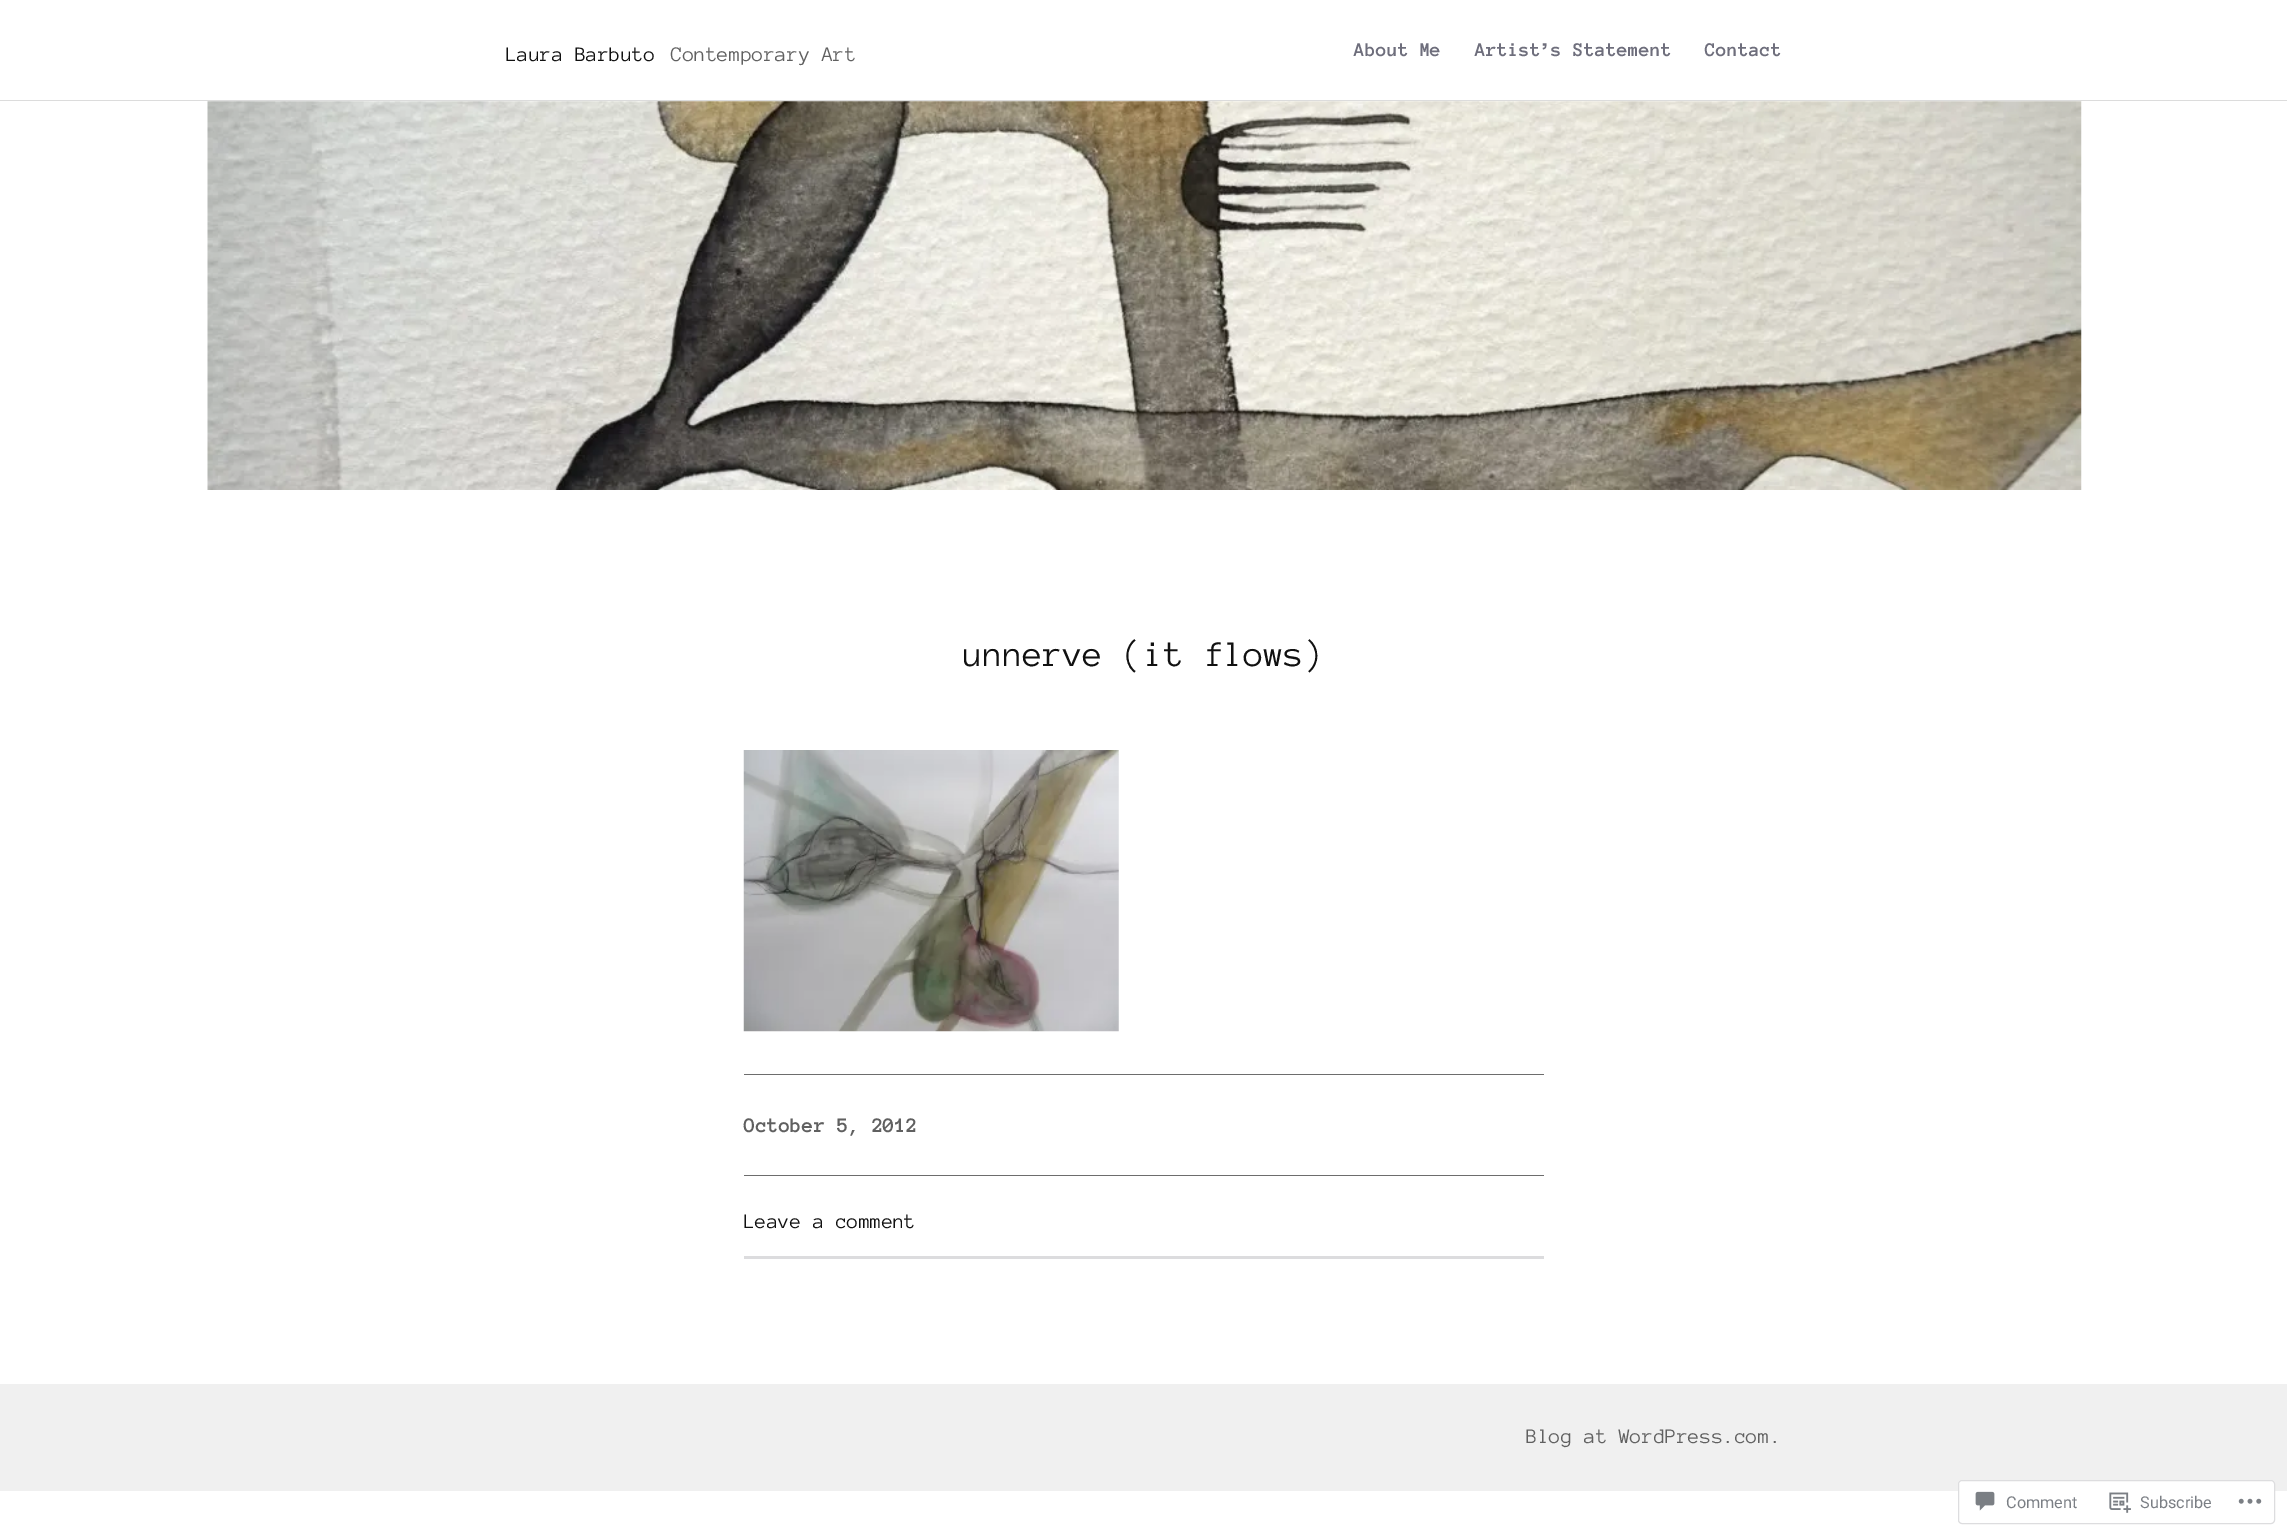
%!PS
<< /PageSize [2287 1536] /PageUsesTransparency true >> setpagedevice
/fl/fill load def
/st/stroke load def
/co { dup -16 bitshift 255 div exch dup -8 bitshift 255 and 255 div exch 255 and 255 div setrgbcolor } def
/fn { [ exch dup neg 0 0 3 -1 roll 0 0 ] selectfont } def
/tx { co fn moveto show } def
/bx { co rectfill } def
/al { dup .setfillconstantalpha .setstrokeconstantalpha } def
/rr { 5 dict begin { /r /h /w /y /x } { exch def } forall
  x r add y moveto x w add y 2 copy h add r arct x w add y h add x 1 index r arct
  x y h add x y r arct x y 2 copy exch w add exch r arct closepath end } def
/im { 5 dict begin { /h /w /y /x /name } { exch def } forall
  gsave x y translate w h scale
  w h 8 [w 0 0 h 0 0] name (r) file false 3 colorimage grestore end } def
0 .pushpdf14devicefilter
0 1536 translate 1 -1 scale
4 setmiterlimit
0 0 2287 1536 16#FFFFFF bx
0 100 2287 1 16#DCDCDC bx
(media/1.raw) 207 101 1875 389 im
(media/2.raw) 743 750 376 282 im
744 1074 800 1 16#6D6D6D bx
744 1175 800 1 16#6D6D6D bx
744 1256 800 3 16#DCDCDE bx
0 1384 2287 107 16#F0F0F0 bx
0.98 al
16#FFFFFF co
1958 1480 317 44 4 rr fl
16#DCDCDE co
1958.5 1480.5 316 43 3.5 rr st
1 al
(media/3.raw) 1975 1491 20 20 im
(media/4.raw) 2109 1492 22 21 im
(media/5.raw) 2238 1498 24 6 im
(Laura Barbuto) 506 61 /AnonymousPro-Regular 21 16#111111 tx
(Contemporary Art) 671 61 /AnonymousPro-Regular 21.25 16#606060 tx
(About Me) 1354 56 /AnonymousPro-Bold 20 16#6E6E7C tx
(Artist’s Statement) 1475 56 /AnonymousPro-Bold 20 16#6E6E7C tx
(Contact) 1705 56 /AnonymousPro-Bold 20 16#6E6E7C tx
(unnerve \(it flows\)) 963 666 /AnonymousPro-Regular 36.75 16#111111 tx
(October 5, 2012) 744 1132 /AnonymousPro-Bold 21.25 16#606060 tx
(Leave a comment) 744 1228 /AnonymousPro-Regular 21 16#111111 tx
(Blog at WordPress.com.) 1526 1443 /AnonymousPro-Regular 21.25 16#606060 tx
(Comment) 2006 1508 /Roboto-Regular 16.25 16#7B7F85 tx
(Subscribe) 2140 1508 /Roboto-Regular 16.25 16#7B7F85 tx
.poppdf14devicefilter showpage
